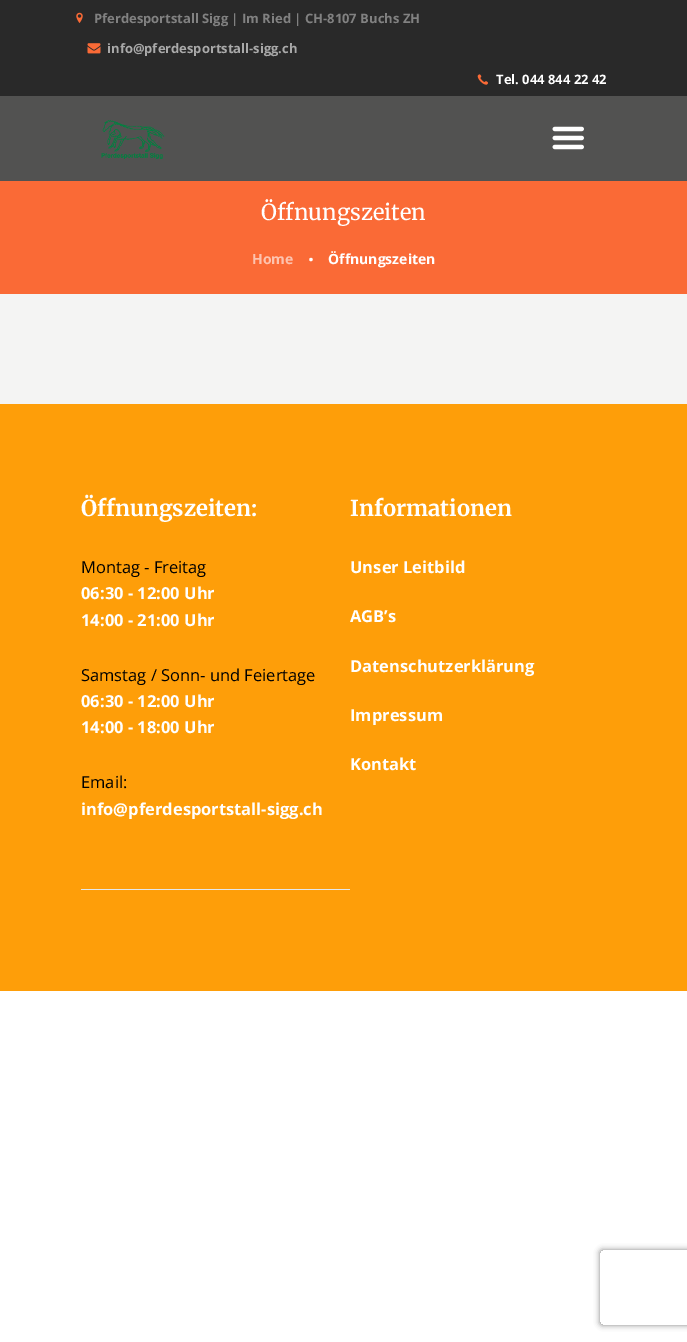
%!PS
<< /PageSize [687 1342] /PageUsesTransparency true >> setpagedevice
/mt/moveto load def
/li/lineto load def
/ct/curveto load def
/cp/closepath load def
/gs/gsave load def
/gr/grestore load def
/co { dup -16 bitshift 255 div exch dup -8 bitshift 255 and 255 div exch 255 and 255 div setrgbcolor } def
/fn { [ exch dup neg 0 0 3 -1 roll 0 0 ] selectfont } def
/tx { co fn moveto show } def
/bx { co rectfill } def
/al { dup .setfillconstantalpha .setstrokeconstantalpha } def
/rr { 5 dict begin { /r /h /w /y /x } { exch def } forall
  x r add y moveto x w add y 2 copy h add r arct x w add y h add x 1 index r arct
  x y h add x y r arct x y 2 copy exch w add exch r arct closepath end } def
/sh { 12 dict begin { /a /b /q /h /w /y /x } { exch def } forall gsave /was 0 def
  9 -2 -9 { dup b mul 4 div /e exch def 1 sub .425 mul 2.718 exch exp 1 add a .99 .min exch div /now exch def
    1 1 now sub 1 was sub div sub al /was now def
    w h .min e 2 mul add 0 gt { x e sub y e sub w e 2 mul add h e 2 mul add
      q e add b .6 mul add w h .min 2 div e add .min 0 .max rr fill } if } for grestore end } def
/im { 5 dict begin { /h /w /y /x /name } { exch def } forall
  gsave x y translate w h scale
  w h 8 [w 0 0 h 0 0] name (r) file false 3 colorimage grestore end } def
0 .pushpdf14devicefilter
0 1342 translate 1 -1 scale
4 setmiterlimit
0 0 687 1342 16#FFFFFF bx
0 294 687 110 16#F4F4F3 bx
0 0 687 96 16#292929 bx
(media/1.raw) 76 12 7 11 im
(media/2.raw) 87 43 14 11 im
(media/3.raw) 477 74 11 11 im
0 96 687 85 16#525251 bx
(media/4.raw) 101 120 64 39 im
(media/5.raw) 552 126 32 24 im
0 181 687 113 16#FA6A36 bx
0 404 687 587 16#FE9E09 bx
81 889 269 1 16#E4E7E8 bx
gs
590 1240 mt 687 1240 li 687 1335 li 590 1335 li cp 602.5 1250 mt 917.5 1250 li 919 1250 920 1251 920 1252.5 ct 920 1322.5 li 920 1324 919 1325 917.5 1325 ct 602.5 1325 li 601 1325 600 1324 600 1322.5 ct 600 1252.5 li 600 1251 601 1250 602.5 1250 ct cp eoclip newpath
16#808080 co
600 1250 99 75 2.5 3 1 sh
gr
(Pferdesportstall Sigg | Im Ried | CH-8107 Buchs ZH) 94 23 /OpenSans-Bold 13 16#818181 tx
(info@pferdesportstall-sigg.ch) 107 53 /OpenSans-Bold 13 16#A9A9A9 tx
(Tel. 044 844 22 42) 496 84 /OpenSans-Bold 13 16#FFFFFF tx
(Öffnungszeiten) 261 220 /Merriweather-Regular 22 16#FFFFFF tx
(Home) 252 264 /OpenSans-Bold 14 16#FDC3AF tx
(.) 308 261 /OpenSans-Bold 21 16#FFFFFF tx
(Öffnungszeiten) 328 264 /OpenSans-Bold 14 16#FFFFFF tx
(Öffnungszeiten:) 81 516 /Merriweather-Bold 22 16#FFFFFF tx
(Montag - Freitag) 81 573 /OpenSans-Regular 16.5 16#000000 tx
(06:30 - 12:00 Uhr) 81 599 /OpenSans-Bold 16.5 16#FFFFFF tx
(14:00 - 21:00 Uhr) 81 626 /OpenSans-Bold 16.5 16#FFFFFF tx
(Samstag / Sonn- und Feiertage) 81 681 /OpenSans-Regular 16.5 16#000000 tx
(06:30 - 12:00 Uhr) 81 707 /OpenSans-Bold 16.5 16#FFFFFF tx
(14:00 - 18:00 Uhr) 81 733 /OpenSans-Bold 16.5 16#FFFFFF tx
(Email:) 81 788 /OpenSans-Regular 16.5 16#000000 tx
(info@pferdesportstall-sigg.ch) 81 815 /OpenSans-Bold 16.5 16#FFFFFF tx
(Informationen) 350 516 /Merriweather-Bold 22 16#FFFFFF tx
(Unser Leitbild) 350 573 /OpenSans-Bold 16.5 16#FFFFFF tx
(AGB’s) 350 622 /OpenSans-Bold 16.5 16#FFFFFF tx
(Datenschutzerklärung) 350 672 /OpenSans-Bold 16.5 16#FFFFFF tx
(Impressum) 350 721 /OpenSans-Bold 16.5 16#FFFFFF tx
(Kontakt) 350 770 /OpenSans-Bold 16.5 16#FFFFFF tx
.poppdf14devicefilter showpage
